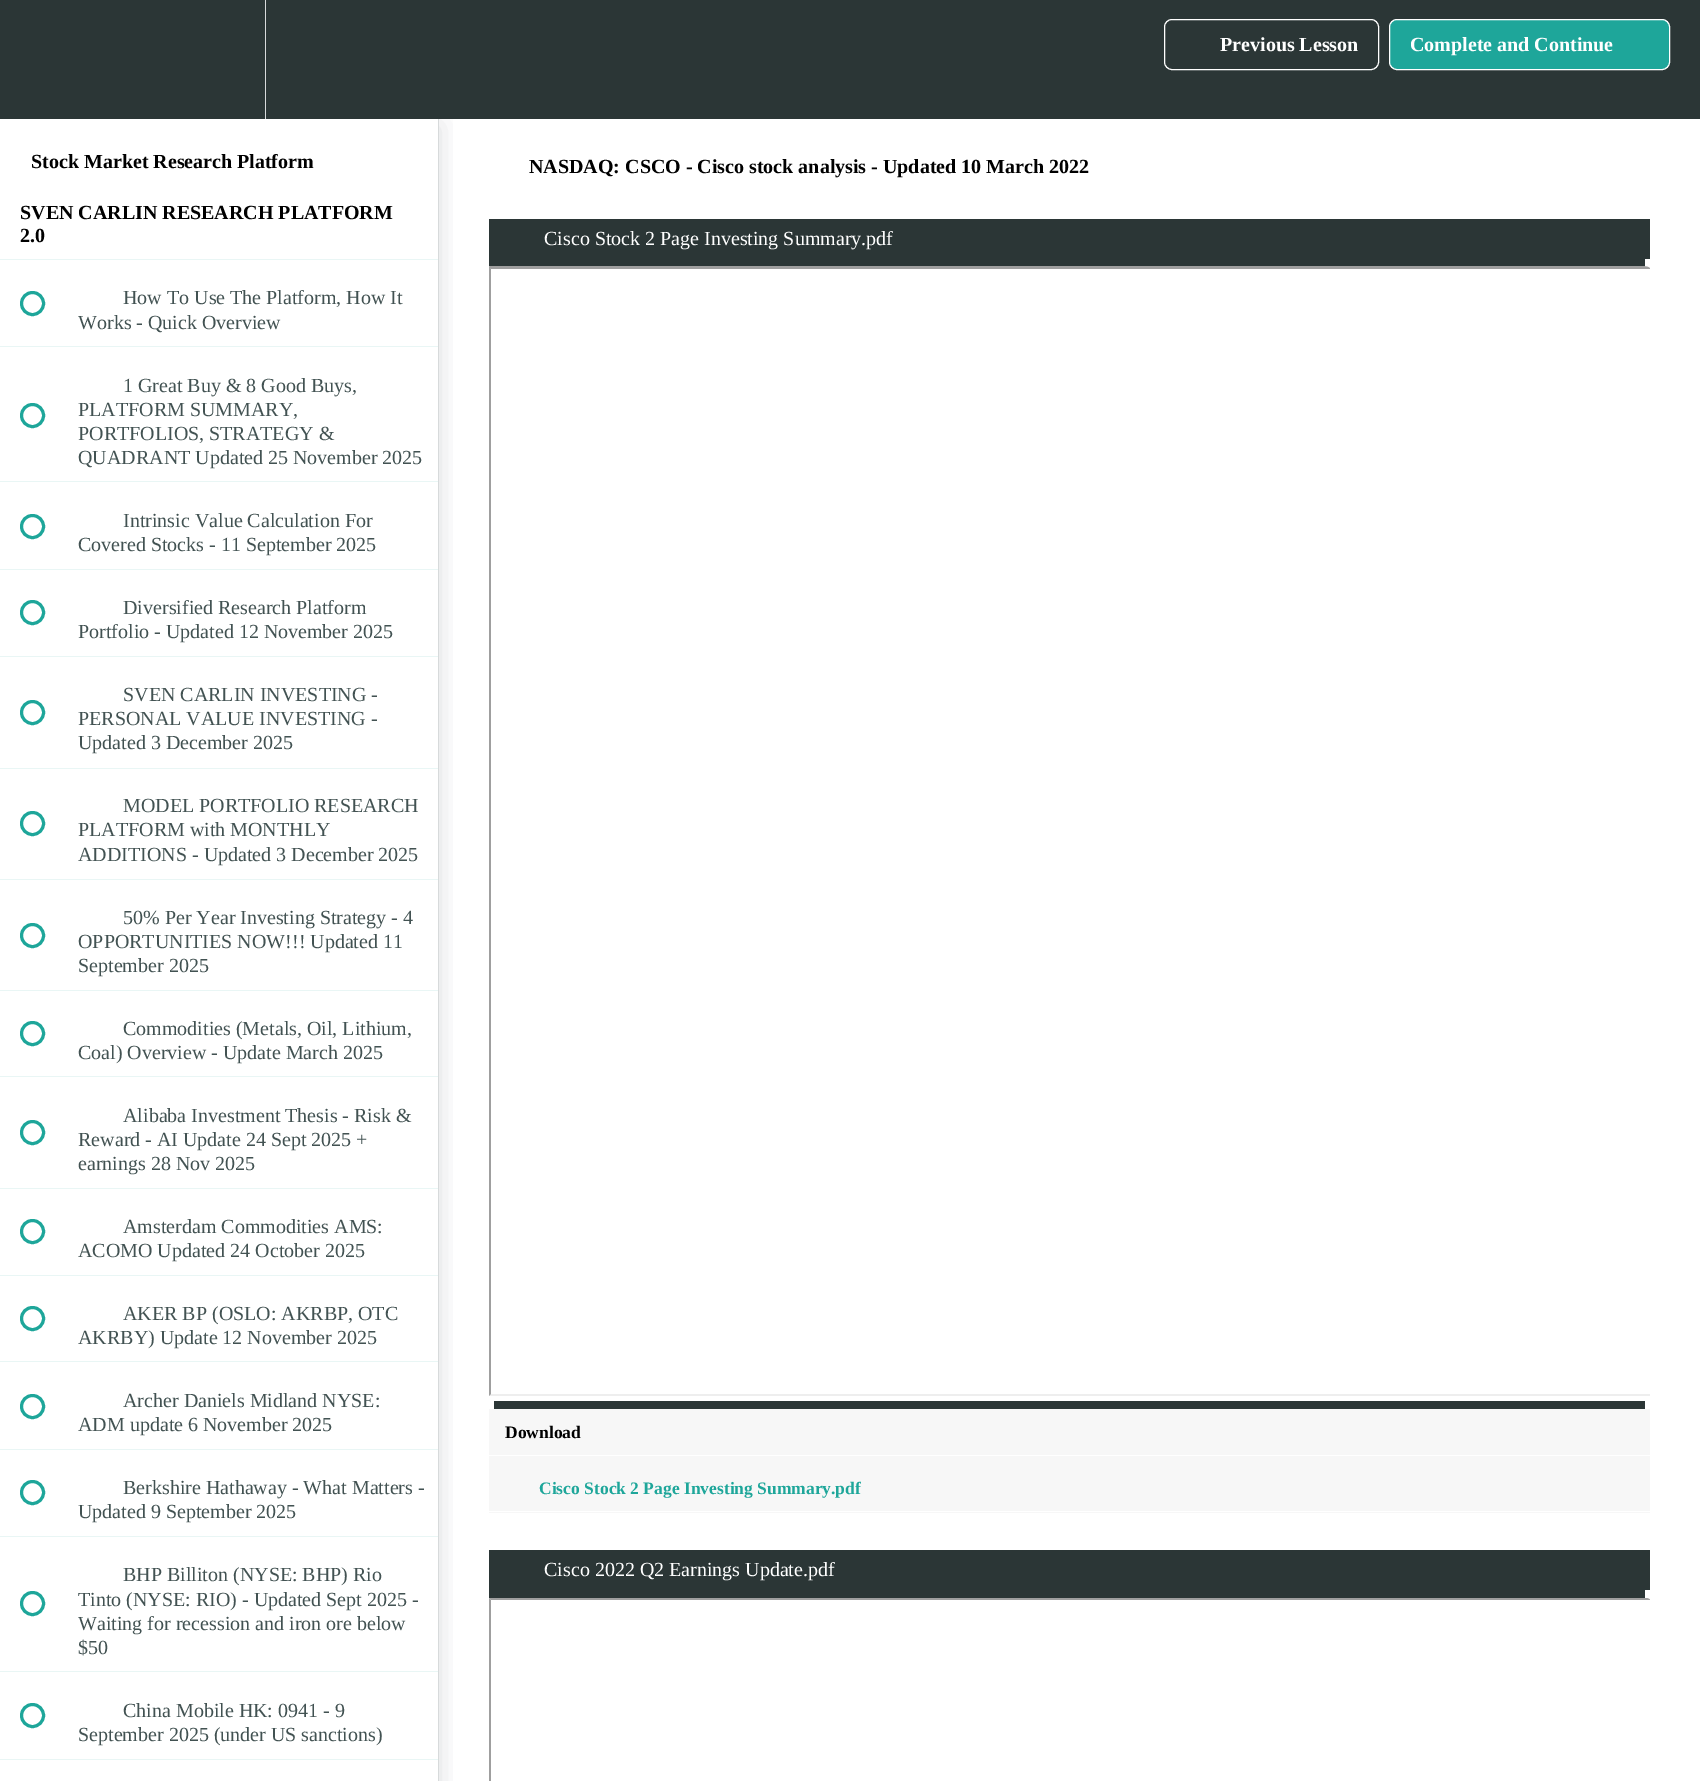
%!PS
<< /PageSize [1700 1781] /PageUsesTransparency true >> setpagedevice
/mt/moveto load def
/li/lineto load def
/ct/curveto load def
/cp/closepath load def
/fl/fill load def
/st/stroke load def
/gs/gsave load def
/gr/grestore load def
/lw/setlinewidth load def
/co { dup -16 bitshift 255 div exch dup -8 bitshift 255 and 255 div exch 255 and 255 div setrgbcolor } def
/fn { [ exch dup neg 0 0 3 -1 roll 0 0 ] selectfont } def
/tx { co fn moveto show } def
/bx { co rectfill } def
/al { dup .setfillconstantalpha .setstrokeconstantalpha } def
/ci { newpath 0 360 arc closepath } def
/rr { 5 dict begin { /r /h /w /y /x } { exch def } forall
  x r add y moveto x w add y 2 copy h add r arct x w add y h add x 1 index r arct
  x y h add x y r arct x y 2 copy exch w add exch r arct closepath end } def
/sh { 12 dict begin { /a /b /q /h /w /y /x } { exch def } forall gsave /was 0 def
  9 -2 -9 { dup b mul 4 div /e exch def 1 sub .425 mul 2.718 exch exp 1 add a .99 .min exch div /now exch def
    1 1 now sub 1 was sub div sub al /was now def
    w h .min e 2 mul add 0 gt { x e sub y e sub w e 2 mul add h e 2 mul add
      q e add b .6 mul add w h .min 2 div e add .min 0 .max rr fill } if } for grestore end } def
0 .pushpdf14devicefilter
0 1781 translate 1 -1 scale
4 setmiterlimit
0 0 1700 1781 16#FFFFFF bx
gs
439 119 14 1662 rectclip
16#20272D co
0 126 439 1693 0 12.5 .15 sh
gr
0 0 1700 119 16#2B3636 bx
265 0 1 119 16#D7DADB bx
16#FFFFFF co
1164.5 19.5 214 50 7.5 rr st
16#1EA69A co
1389.5 19.5 280 50 7.5 rr gs fl gr
16#FFFFFF co
st
438 119 1 1662 16#D7DADB bx
0 259 438 1 16#E9F6F5 bx
0 346 438 1 16#E9F6F5 bx
16#1EA69A co
3 lw
32.5 303.5 11 ci st
0 481 438 1 16#E9F6F5 bx
16#1EA69A co
32.5 415.5 11 ci st
0 569 438 1 16#E9F6F5 bx
16#1EA69A co
32.5 526.5 11 ci st
0 656 438 1 16#E9F6F5 bx
16#1EA69A co
32.5 612.5 11 ci st
0 768 438 1 16#E9F6F5 bx
16#1EA69A co
32.5 712.5 11 ci st
0 879 438 1 16#E9F6F5 bx
16#1EA69A co
32.5 823.5 11 ci st
0 990 438 1 16#E9F6F5 bx
16#1EA69A co
32.5 935.5 11 ci st
0 1076 438 1 16#E9F6F5 bx
16#1EA69A co
32.5 1033.5 11 ci st
0 1188 438 1 16#E9F6F5 bx
16#1EA69A co
32.5 1132.5 11 ci st
0 1275 438 1 16#E9F6F5 bx
16#1EA69A co
32.5 1231.5 11 ci st
0 1361 438 1 16#E9F6F5 bx
16#1EA69A co
32.5 1318.5 11 ci st
0 1449 438 1 16#E9F6F5 bx
16#1EA69A co
32.5 1406.5 11 ci st
0 1536 438 1 16#E9F6F5 bx
16#1EA69A co
32.5 1492.5 11 ci st
0 1671 438 1 16#E9F6F5 bx
16#1EA69A co
32.5 1603.5 11 ci st
0 1759 438 1 16#E9F6F5 bx
16#1EA69A co
32.5 1715.5 11 ci st
489 219 1161 40 16#2B3636 bx
489 259 1156 7 16#2B3636 bx
494 1401 1151 8 16#2B3636 bx
16#9F9F9F co
1650 269 mt 491 269 li 489 266 li 1640 266 li 1642 266 1650 266 1650 269 ct cp fl
16#EEEEEE co
1650 1394 mt 1650 1396 li 489 1396 li 491 1394 li cp fl
16#9F9F9F co
489 1396 mt 489 266 li 491 269 li 491 1394 li cp fl
489 1409 1161 46 16#F7F7F7 bx
489 1456 1161 57 16#F7F7F7 bx
489 1511 1161 1 16#FFFFFF bx
489 1550 1161 40 16#2B3636 bx
489 1590 1156 8 16#2B3636 bx
16#9F9F9F co
489 1598 mt 1646 1598 li 1648 1598 1650 1599 1650 1600 ct 491 1600 li cp fl
489 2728 mt 489 1598 li 491 1600 li 491 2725 li cp fl
(Previous Lesson) 1220 51 /LiberationSerif-Bold 20 16#FFFFFF tx
(Complete and Continue) 1410 51 /LiberationSerif-Bold 20 16#FFFFFF tx
(Stock Market Research Platform) 31 168 /LiberationSerif-Bold 20 16#000000 tx
(SVEN CARLIN RESEARCH PLATFORM) 20 219 /LiberationSerif-Bold 20 16#000000 tx
(2.0) 20 242 /LiberationSerif-Bold 20 16#000000 tx
(How To Use The Platform, How It) 123 304 /LiberationSerif-Regular 20 16#425252 tx
(Works - Quick Overview) 78 329 /LiberationSerif-Regular 20 16#425252 tx
(1 Great Buy & 8 Good Buys,) 123 392 /LiberationSerif-Regular 20 16#425252 tx
(PLATFORM SUMMARY,) 78 416 /LiberationSerif-Regular 20 16#425252 tx
(PORTFOLIOS, STRATEGY &) 78 440 /LiberationSerif-Regular 20 16#425252 tx
(QUADRANT Updated 25 November 2025) 78 464 /LiberationSerif-Regular 20 16#425252 tx
(Intrinsic Value Calculation For) 123 527 /LiberationSerif-Regular 20 16#425252 tx
(Covered Stocks - 11 September 2025) 78 551 /LiberationSerif-Regular 20 16#425252 tx
(Diversified Research Platform) 123 614 /LiberationSerif-Regular 20 16#425252 tx
(Portfolio - Updated 12 November 2025) 78 638 /LiberationSerif-Regular 20 16#425252 tx
(SVEN CARLIN INVESTING -) 123 701 /LiberationSerif-Regular 20 16#425252 tx
(PERSONAL VALUE INVESTING -) 78 725 /LiberationSerif-Regular 20 16#425252 tx
(Updated 3 December 2025) 78 749 /LiberationSerif-Regular 20 16#425252 tx
(MODEL PORTFOLIO RESEARCH) 123 812 /LiberationSerif-Regular 20 16#425252 tx
(PLATFORM with MONTHLY) 78 836 /LiberationSerif-Regular 20 16#425252 tx
(ADDITIONS - Updated 3 December 2025) 78 861 /LiberationSerif-Regular 20 16#425252 tx
(50% Per Year Investing Strategy - 4) 123 924 /LiberationSerif-Regular 20 16#425252 tx
(OPPORTUNITIES NOW!!! Updated 11) 78 948 /LiberationSerif-Regular 20 16#425252 tx
(September 2025) 78 972 /LiberationSerif-Regular 20 16#425252 tx
(Commodities \(Metals, Oil, Lithium,) 123 1035 /LiberationSerif-Regular 20 16#425252 tx
(Coal\) Overview - Update March 2025) 78 1059 /LiberationSerif-Regular 20 16#425252 tx
(Alibaba Investment Thesis - Risk &) 123 1122 /LiberationSerif-Regular 20 16#425252 tx
(Reward - AI Update 24 Sept 2025 +) 78 1146 /LiberationSerif-Regular 20 16#425252 tx
(earnings 28 Nov 2025) 78 1170 /LiberationSerif-Regular 20 16#425252 tx
(Amsterdam Commodities AMS:) 123 1233 /LiberationSerif-Regular 20 16#425252 tx
(ACOMO Updated 24 October 2025) 78 1257 /LiberationSerif-Regular 20 16#425252 tx
(AKER BP \(OSLO: AKRBP, OTC) 123 1320 /LiberationSerif-Regular 20 16#425252 tx
(AKRBY\) Update 12 November 2025) 78 1344 /LiberationSerif-Regular 20 16#425252 tx
(Archer Daniels Midland NYSE:) 123 1407 /LiberationSerif-Regular 20 16#425252 tx
(ADM update 6 November 2025) 78 1431 /LiberationSerif-Regular 20 16#425252 tx
(Berkshire Hathaway - What Matters -) 123 1494 /LiberationSerif-Regular 20 16#425252 tx
(Updated 9 September 2025) 78 1518 /LiberationSerif-Regular 20 16#425252 tx
(BHP Billiton \(NYSE: BHP\) Rio) 123 1581 /LiberationSerif-Regular 20 16#425252 tx
(Tinto \(NYSE: RIO\) - Updated Sept 2025 -) 78 1606 /LiberationSerif-Regular 20 16#425252 tx
(Waiting for recession and iron ore below) 78 1630 /LiberationSerif-Regular 20 16#425252 tx
($50) 78 1654 /LiberationSerif-Regular 20 16#425252 tx
(China Mobile HK: 0941 - 9) 123 1717 /LiberationSerif-Regular 20 16#425252 tx
(September 2025 \(under US sanctions\)) 78 1741 /LiberationSerif-Regular 20 16#425252 tx
(NASDAQ: CSCO - Cisco stock analysis - Updated 10 March 2022) 529 173 /LiberationSerif-Bold 20 16#000000 tx
(Cisco Stock 2 Page Investing Summary.pdf) 544 245 /LiberationSerif-Regular 20 16#FFFFFF tx
(Download) 505 1438 /LiberationSerif-Bold 17.5 16#000000 tx
(Cisco Stock 2 Page Investing Summary.pdf) 539 1494 /LiberationSerif-Bold 17.5 16#1EA69A tx
(Cisco 2022 Q2 Earnings Update.pdf) 544 1576 /LiberationSerif-Regular 20 16#FFFFFF tx
.poppdf14devicefilter showpage
